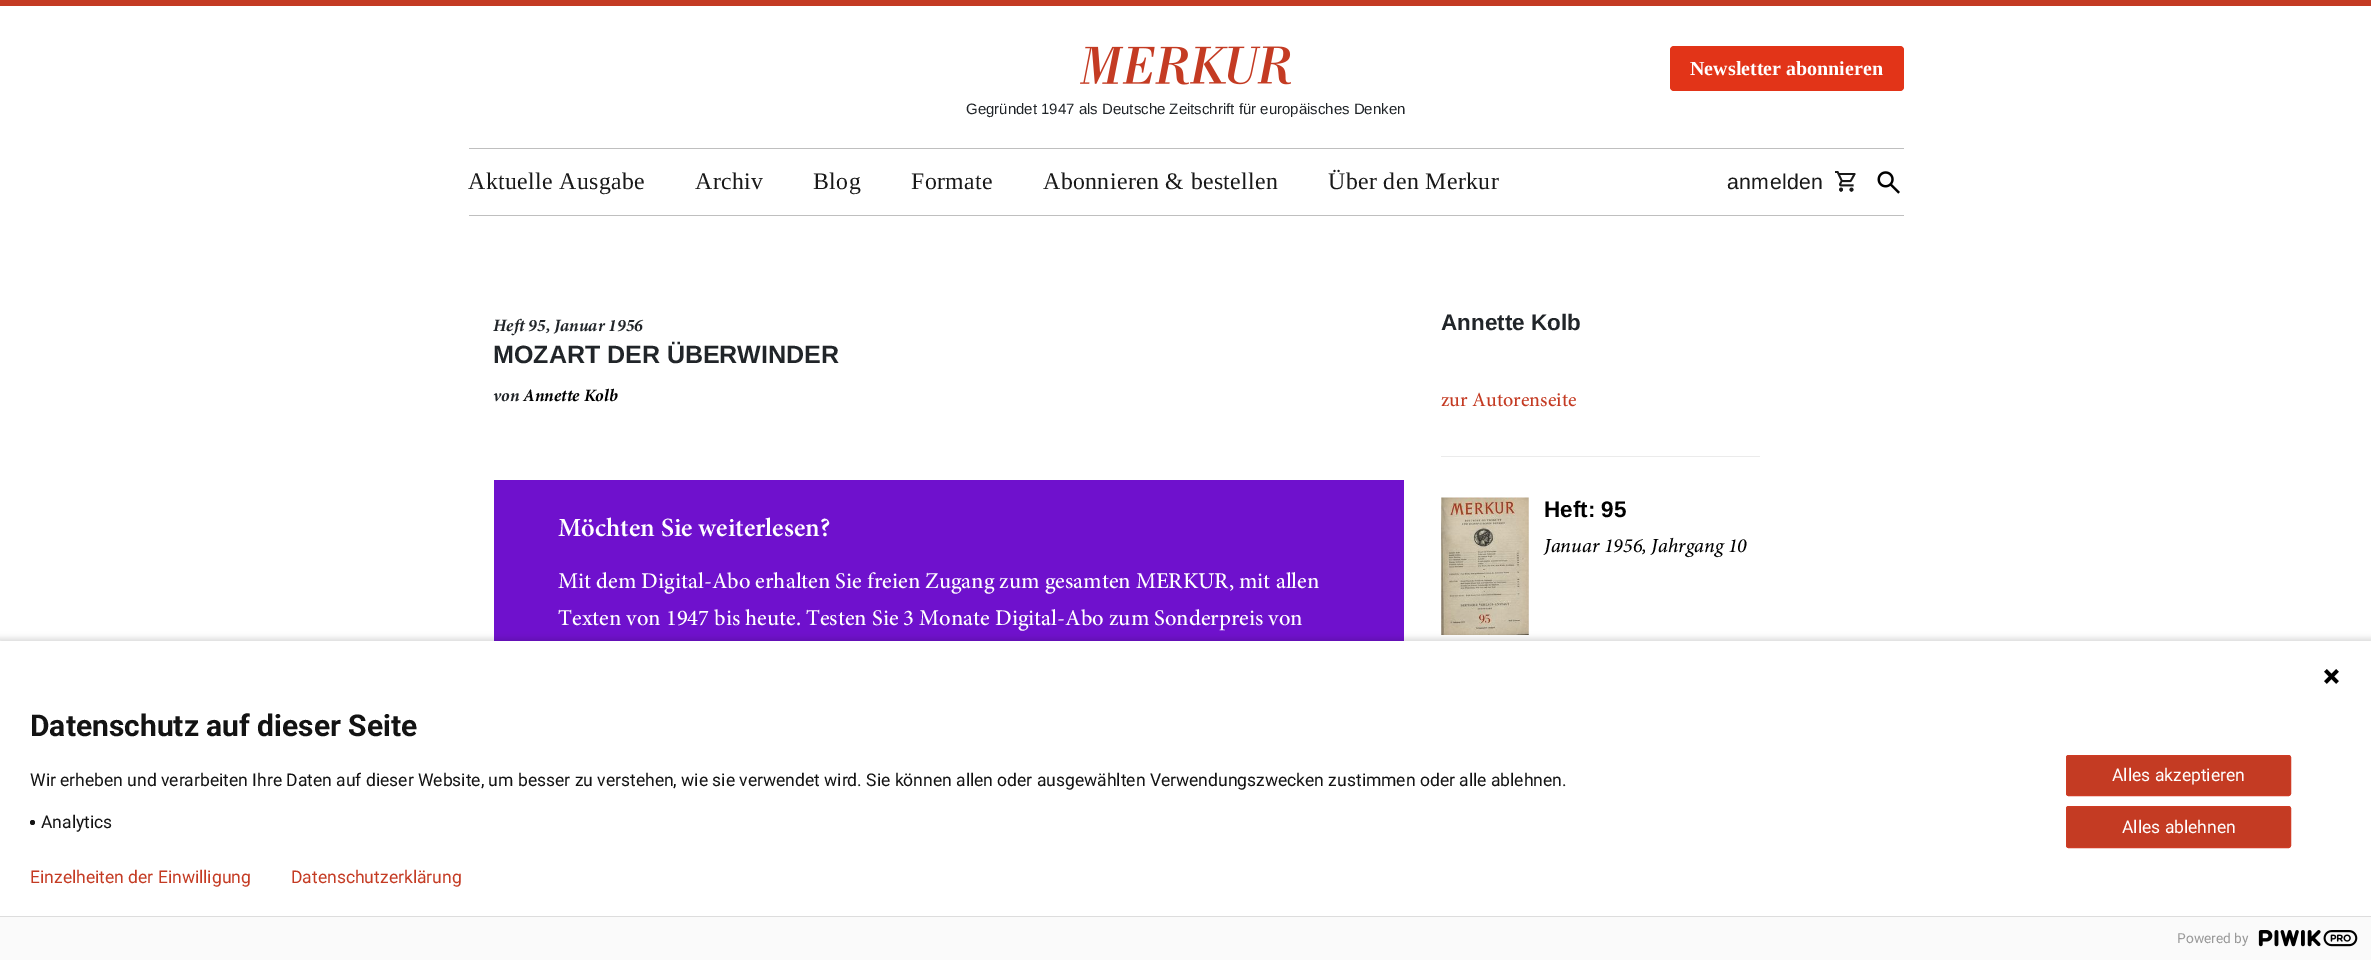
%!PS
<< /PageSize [2371 960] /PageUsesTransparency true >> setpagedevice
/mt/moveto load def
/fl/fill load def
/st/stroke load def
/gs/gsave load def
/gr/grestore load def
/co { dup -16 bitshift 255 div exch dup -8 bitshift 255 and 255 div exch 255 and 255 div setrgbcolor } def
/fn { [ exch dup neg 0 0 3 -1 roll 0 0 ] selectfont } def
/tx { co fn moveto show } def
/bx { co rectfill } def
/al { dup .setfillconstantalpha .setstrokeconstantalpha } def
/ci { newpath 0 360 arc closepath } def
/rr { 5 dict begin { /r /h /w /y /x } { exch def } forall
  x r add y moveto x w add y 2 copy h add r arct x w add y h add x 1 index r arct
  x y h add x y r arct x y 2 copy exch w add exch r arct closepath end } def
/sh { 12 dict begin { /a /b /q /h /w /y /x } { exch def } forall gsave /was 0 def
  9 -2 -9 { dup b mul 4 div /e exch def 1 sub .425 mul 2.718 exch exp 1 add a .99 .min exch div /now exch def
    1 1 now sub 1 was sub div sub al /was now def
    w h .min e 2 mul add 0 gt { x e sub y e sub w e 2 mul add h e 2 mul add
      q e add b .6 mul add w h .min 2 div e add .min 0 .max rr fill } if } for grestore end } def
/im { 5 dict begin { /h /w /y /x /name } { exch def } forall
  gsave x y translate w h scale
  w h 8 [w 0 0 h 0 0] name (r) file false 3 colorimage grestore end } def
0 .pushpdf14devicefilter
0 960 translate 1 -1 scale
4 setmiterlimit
0 0 2371 960 16#FFFFFF bx
0 0 2371 6 16#C43B23 bx
16#E23418 co
1670 46 234 45 4 rr fl
(media/1.raw) 1080 46 211 39 im
469 148 1435 1 16#BFBFBF bx
469 215 1435 1 16#BFBFBF bx
(media/2.raw) 1835 171 21 21 im
(media/3.raw) 1877 171 23 23 im
494 480 910 161 16#6F11CD bx
1441 456 319 1 16#EBEBEB bx
(media/4.raw) 1441 497 88 138 im
16#000000 co
-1 638 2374 321 0 3 .14 sh
0 641 2371 275 16#FFFFFF bx
(media/5.raw) 2324 669 15 15 im
16#131313 co
32.5 822.5 2.5 ci fl
16#C43B23 co
2066.5 755.5 224 40 2 rr gs fl gr
16#CF3B24 co
st
16#C43B23 co
2066.5 806.5 224 41 2 rr gs fl gr
16#CF3B24 co
st
0 917 2371 43 16#FAFAFA bx
0 916 2371 1 16#DDDDDD bx
(media/6.raw) 2258 930 100 17 im
(Newsletter abonnieren) 1690 75 /LiberationSerif-Bold 20 16#FFFFFF tx
(Gegründet 1947 als Deutsche Zeitschrift für europäisches Denken) 966 114 /LiberationSans-Regular 15 16#212529 tx
/LiberationSerif-Regular 23.75 fn
16#191919 co
468 189 mt .4 0 (Aktuelle Ausgabe) ashow
695 189 mt .4 0 (Archiv) ashow
813 189 mt .4 0 (Blog) ashow
911 189 mt .4 0 (Formate) ashow
1043 189 mt .4 0 (Abonnieren & bestellen) ashow
1328 189 mt .4 0 (Über den Merkur) ashow
/LiberationSans-Regular 21.25 fn
1727 189 mt .4 0 (anmelden) ashow
(Heft 95, Januar 1956) 493 331 /Minion-BoldItalic 17.5 16#212529 tx
(MOZART DER ÜBERWINDER) 493 363 /LiberationSans-Bold 25 16#212529 tx
(von) 493 401 /Minion-BoldItalic 17.5 16#212529 tx
(Annette Kolb) 523 401 /Minion-BoldItalic 17.5 16#000000 tx
(Möchten Sie weiterlesen?) 558 536 /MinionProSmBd-SemiBold 26.25 16#FFFFFF tx
(Mit dem Digital-Abo erhalten Sie freien Zugang zum gesamten MERKUR, mit allen) 558 588 /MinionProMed-Medium 22.5 16#FFFFFF tx
(Texten von 1947 bis heute. Testen Sie 3 Monate Digital-Abo zum Sonderpreis von) 558 625 /MinionProMed-Medium 22.5 16#FFFFFF tx
(Annette Kolb) 1441 330 /LiberationSans-Bold 22.5 16#212529 tx
(zur Autorenseite) 1441 406 /MinionProMed-Medium 20 16#C43B23 tx
(Heft: 95) 1544 517 /LiberationSans-Bold 22.5 16#000000 tx
(Januar 1956, Jahrgang 10) 1544 552 /MinionProMed-MediumItalic 20 16#000000 tx
(Datenschutz auf dieser Seite) 30 736 /Roboto-Bold 30 16#131313 tx
(Wir erheben und verarbeiten Ihre Daten auf dieser Website, um besser zu verstehen, wie sie verwendet wird. Sie können allen oder ausgewählten Verwendungszwecken zustimmen oder alle ablehnen.) 30 786 /Roboto-Regular 17.5 16#131313 tx
(Analytics) 41 828 /Roboto-Regular 17.5 16#131313 tx
(Alles akzeptieren) 2112 781 /Roboto-Regular 17.5 16#FFFFFF tx
(Alles ablehnen) 2122 833 /Roboto-Regular 17.5 16#FFFFFF tx
(Einzelheiten der Einwilligung) 30 883 /Roboto-Regular 17.5 16#C43B23 tx
(Datenschutzerklärung) 291 883 /Roboto-Regular 17.5 16#C43B23 tx
(Powered by) 2177 943 /Roboto-Regular 13.75 16#999999 tx
.poppdf14devicefilter showpage
